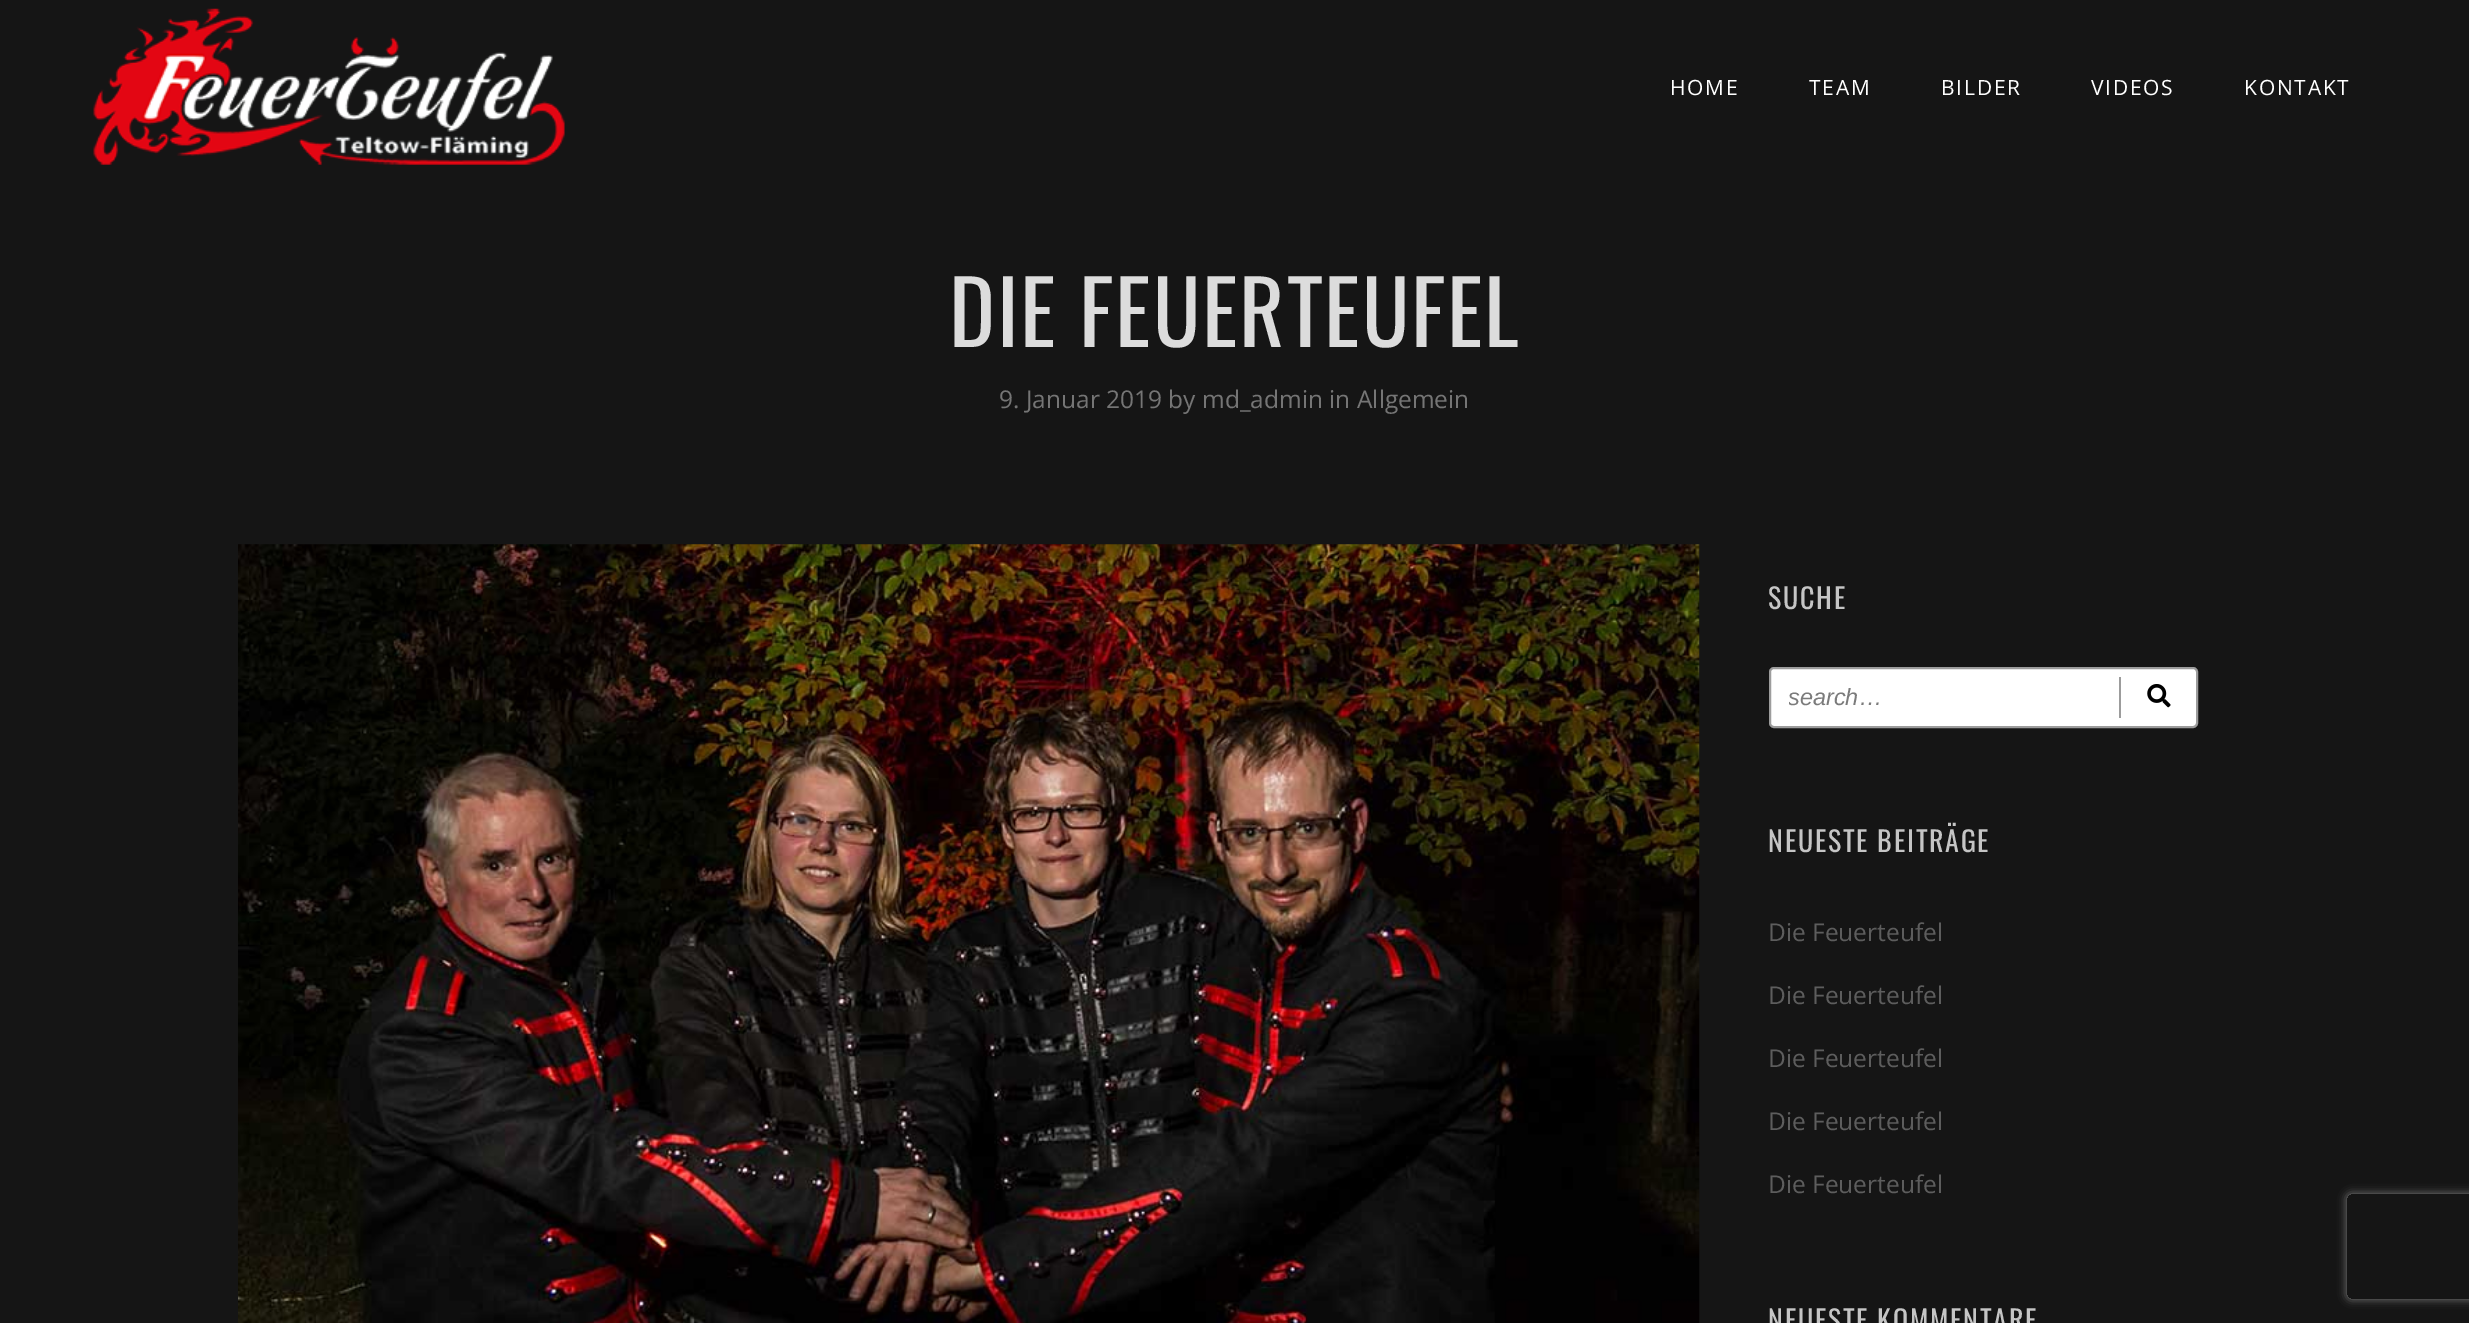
%!PS
<< /PageSize [2469 1323] /PageUsesTransparency true >> setpagedevice
/mt/moveto load def
/li/lineto load def
/ct/curveto load def
/cp/closepath load def
/fl/fill load def
/st/stroke load def
/gs/gsave load def
/gr/grestore load def
/lw/setlinewidth load def
/co { dup -16 bitshift 255 div exch dup -8 bitshift 255 and 255 div exch 255 and 255 div setrgbcolor } def
/fn { [ exch dup neg 0 0 3 -1 roll 0 0 ] selectfont } def
/tx { co fn moveto show } def
/bx { co rectfill } def
/al { dup .setfillconstantalpha .setstrokeconstantalpha } def
/rr { 5 dict begin { /r /h /w /y /x } { exch def } forall
  x r add y moveto x w add y 2 copy h add r arct x w add y h add x 1 index r arct
  x y h add x y r arct x y 2 copy exch w add exch r arct closepath end } def
/sh { 12 dict begin { /a /b /q /h /w /y /x } { exch def } forall gsave /was 0 def
  9 -2 -9 { dup b mul 4 div /e exch def 1 sub .425 mul 2.718 exch exp 1 add a .99 .min exch div /now exch def
    1 1 now sub 1 was sub div sub al /was now def
    w h .min e 2 mul add 0 gt { x e sub y e sub w e 2 mul add h e 2 mul add
      q e add b .6 mul add w h .min 2 div e add .min 0 .max rr fill } if } for grestore end } def
/im { 5 dict begin { /h /w /y /x /name } { exch def } forall
  gsave x y translate w h scale
  w h 8 [w 0 0 h 0 0] name (r) file false 3 colorimage grestore end } def
0 .pushpdf14devicefilter
0 1323 translate 1 -1 scale
4 setmiterlimit
0 0 2469 1323 16#151515 bx
(media/1.raw) 93 8 472 157 im
(media/2.raw) 238 544 1462 779 im
16#FFFFFF co
1770 668 427 59 4 rr gs fl gr
16#9C9C9C co
2 lw
st
2119 677 2 41 16#9C9C9C bx
(media/3.raw) 2147 684 24 24 im
gs
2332 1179 mt 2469 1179 li 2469 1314 li 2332 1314 li cp 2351 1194 mt 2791 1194 li 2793 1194 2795 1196 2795 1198 ct 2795 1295 li 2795 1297 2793 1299 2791 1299 ct 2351 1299 li 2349 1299 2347 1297 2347 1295 ct 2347 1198 li 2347 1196 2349 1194 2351 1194 ct cp eoclip newpath
16#808080 co
2347 1194 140 105 4 4.5 1 sh
gr
/OpenSans-Regular 21 fn
16#FFFFFF co
1670 95 mt 1.75 0 (HOME) ashow
1809 95 mt 1.75 0 (TEAM) ashow
1941 95 mt 1.75 0 (BILDER) ashow
2091 95 mt 1.75 0 (VIDEOS) ashow
2244 95 mt 1.75 0 (KONTAKT) ashow
/Oswald-Regular 87.5 fn
16#DCDCDC co
949 347 mt 1.75 0 (DIE FEUERTEUFEL) ashow
(9. Januar 2019 by md_admin in Allgemein) 999 408 /OpenSans-Regular 24.5 16#757575 tx
/Oswald-Regular 28 fn
16#C5C5C5 co
1768 609 mt 1.75 0 (SUCHE) ashow
gs
1789 684 390 27 rectclip
(search…) 1788 705 /LiberationSans-Italic 23.5 16#7B7B7B tx
gr
1768 852 mt 1.75 0 (NEUESTE BEITRÄGE) ashow
(Die Feuerteufel) 1768 941 /OpenSans-Regular 24.5 16#5D5D5D tx
(Die Feuerteufel) 1768 1004 /OpenSans-Regular 24.5 16#5D5D5D tx
(Die Feuerteufel) 1768 1067 /OpenSans-Regular 24.5 16#5D5D5D tx
(Die Feuerteufel) 1768 1130 /OpenSans-Regular 24.5 16#5D5D5D tx
(Die Feuerteufel) 1768 1193 /OpenSans-Regular 24.5 16#5D5D5D tx
/Oswald-Regular 28 fn
16#C5C5C5 co
1768 1331 mt 1.75 0 (NEUESTE KOMMENTARE) ashow
.poppdf14devicefilter showpage
